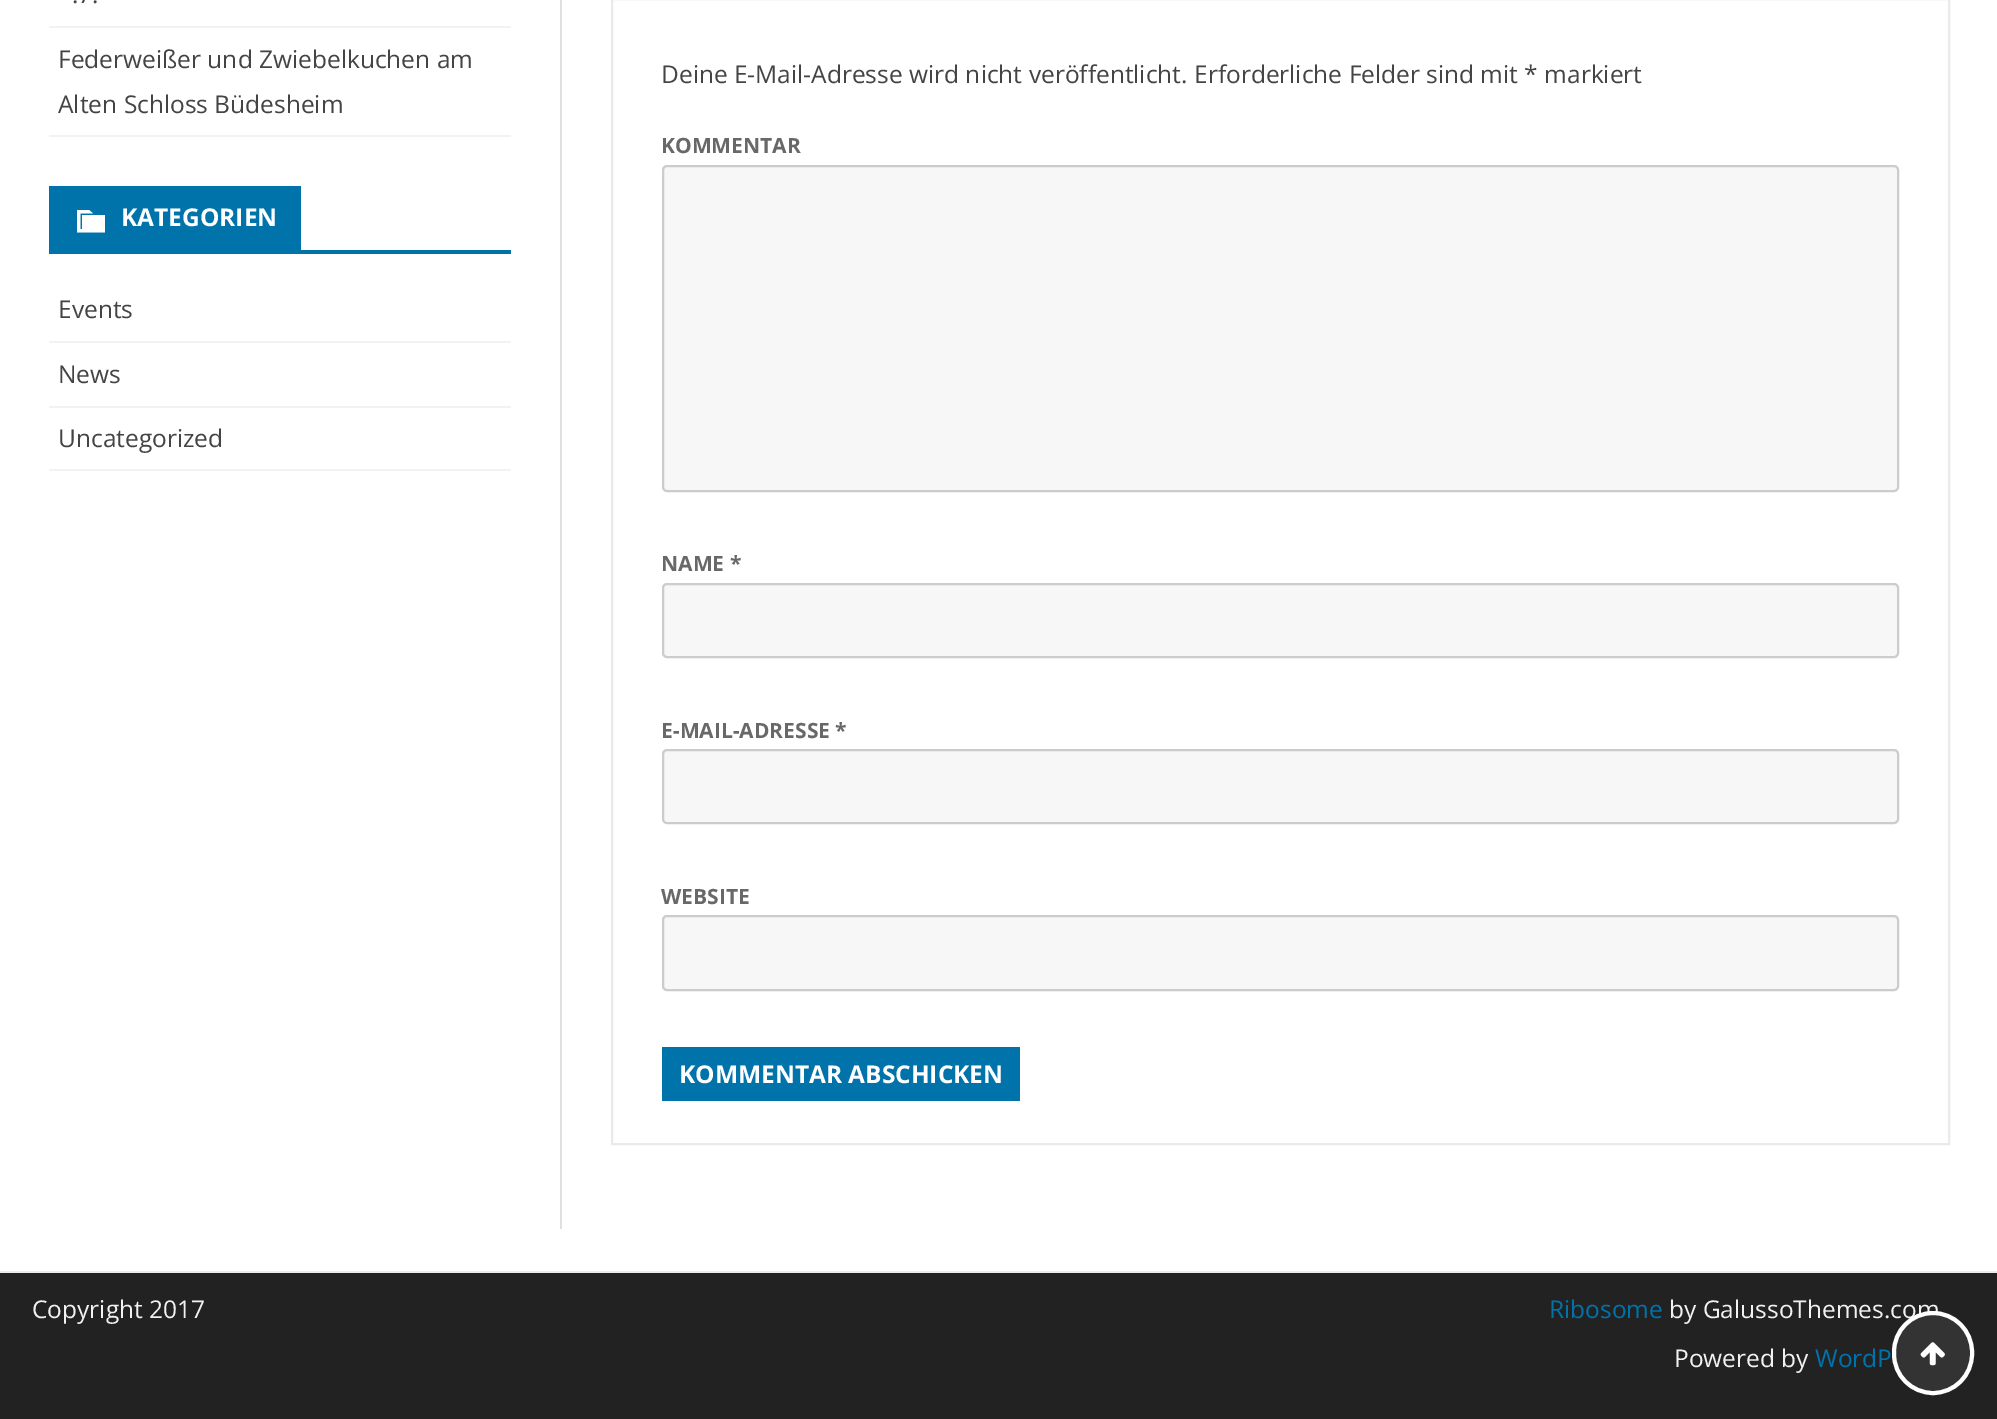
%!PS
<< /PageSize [1997 1419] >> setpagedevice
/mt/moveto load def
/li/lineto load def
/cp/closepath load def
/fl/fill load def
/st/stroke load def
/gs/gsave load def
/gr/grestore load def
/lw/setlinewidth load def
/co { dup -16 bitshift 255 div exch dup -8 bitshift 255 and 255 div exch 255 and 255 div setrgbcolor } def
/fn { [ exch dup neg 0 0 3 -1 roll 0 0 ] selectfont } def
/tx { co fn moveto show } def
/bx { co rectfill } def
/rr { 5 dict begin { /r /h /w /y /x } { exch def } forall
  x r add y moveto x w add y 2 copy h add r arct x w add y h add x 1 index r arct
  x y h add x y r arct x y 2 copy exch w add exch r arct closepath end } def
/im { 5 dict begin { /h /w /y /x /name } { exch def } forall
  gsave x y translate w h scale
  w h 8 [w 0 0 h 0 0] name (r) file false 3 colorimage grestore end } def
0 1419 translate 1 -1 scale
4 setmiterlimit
0 0 1997 1419 16#FFFFFF bx
49 26 462 2 16#F2F2F2 bx
49 135 462 2 16#F2F2F2 bx
49 250 462 4 16#0073AA bx
49 186 252 64 16#0073AA bx
16#FFFFFF co
82 215 mt 105 215 li 105 232.5 li 77 232.5 li 77 210 li 89 210 li 93 213.5 li 80.5 213.5 li 80.5 229 li 82 229 li cp fl
49 341 462 2 16#F2F2F2 bx
49 406 462 2 16#F2F2F2 bx
49 469 462 2 16#F2F2F2 bx
560 0 2 1229 16#E0E0E0 bx
16#EAEAEA co
2 lw
612 -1 1337 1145 rectstroke
16#F7F7F7 co
663 166 1235 325 4 rr gs fl gr
16#CCCCCC co
st
16#F7F7F7 co
663 584 1235 73 4 rr gs fl gr
16#CCCCCC co
st
16#F7F7F7 co
663 750 1235 73 4 rr gs fl gr
16#CCCCCC co
st
16#F7F7F7 co
663 916 1235 74 4 rr gs fl gr
16#CCCCCC co
st
662 1047 358 54 16#0073AA bx
0 1273 1997 146 16#222222 bx
0 1271 1997 2 16#EDEDED bx
(.7.) 72 3 /OpenSans-Regular 24.5 16#444444 tx
(Federweißer und Zwiebelkuchen am) 58 68 /OpenSans-Regular 24.5 16#444444 tx
(Alten Schloss Büdesheim) 58 113 /OpenSans-Regular 24.5 16#444444 tx
(KATEGORIEN) 121 226 /OpenSans-Bold 24.5 16#FFFFFF tx
(Events) 58 318 /OpenSans-Regular 24.5 16#444444 tx
(News) 58 383 /OpenSans-Regular 24.5 16#444444 tx
(Uncategorized) 58 447 /OpenSans-Regular 24.5 16#444444 tx
(Deine E-Mail-Adresse wird nicht veröffentlicht. Erforderliche Felder sind mit * markiert) 661 83 /OpenSans-Regular 24.5 16#444444 tx
(KOMMENTAR) 661 153 /OpenSans-Bold 21 16#686868 tx
(NAME *) 661 571 /OpenSans-Bold 21 16#686868 tx
(E-MAIL-ADRESSE *) 661 738 /OpenSans-Bold 21 16#686868 tx
(WEBSITE) 661 904 /OpenSans-Bold 21 16#686868 tx
(KOMMENTAR ABSCHICKEN) 679 1083 /OpenSans-Bold 24.5 16#FFFFFF tx
(Copyright 2017) 32 1318 /OpenSans-Regular 24.5 16#F2F2F2 tx
(Ribosome) 1549 1318 /OpenSans-Regular 24.5 16#0073AA tx
(by GalussoThemes.com) 1669 1318 /OpenSans-Regular 24.5 16#F2F2F2 tx
(Powered by) 1674 1367 /OpenSans-Regular 24.5 16#F2F2F2 tx
(WordP) 1815 1367 /OpenSans-Regular 24.5 16#0073AA tx
16#333333 co
1894 1313 78 80 39 rr gs fl gr
16#FFFFFF co
4 lw
st
(media/1.raw) 1920 1342 25 24 im
showpage
